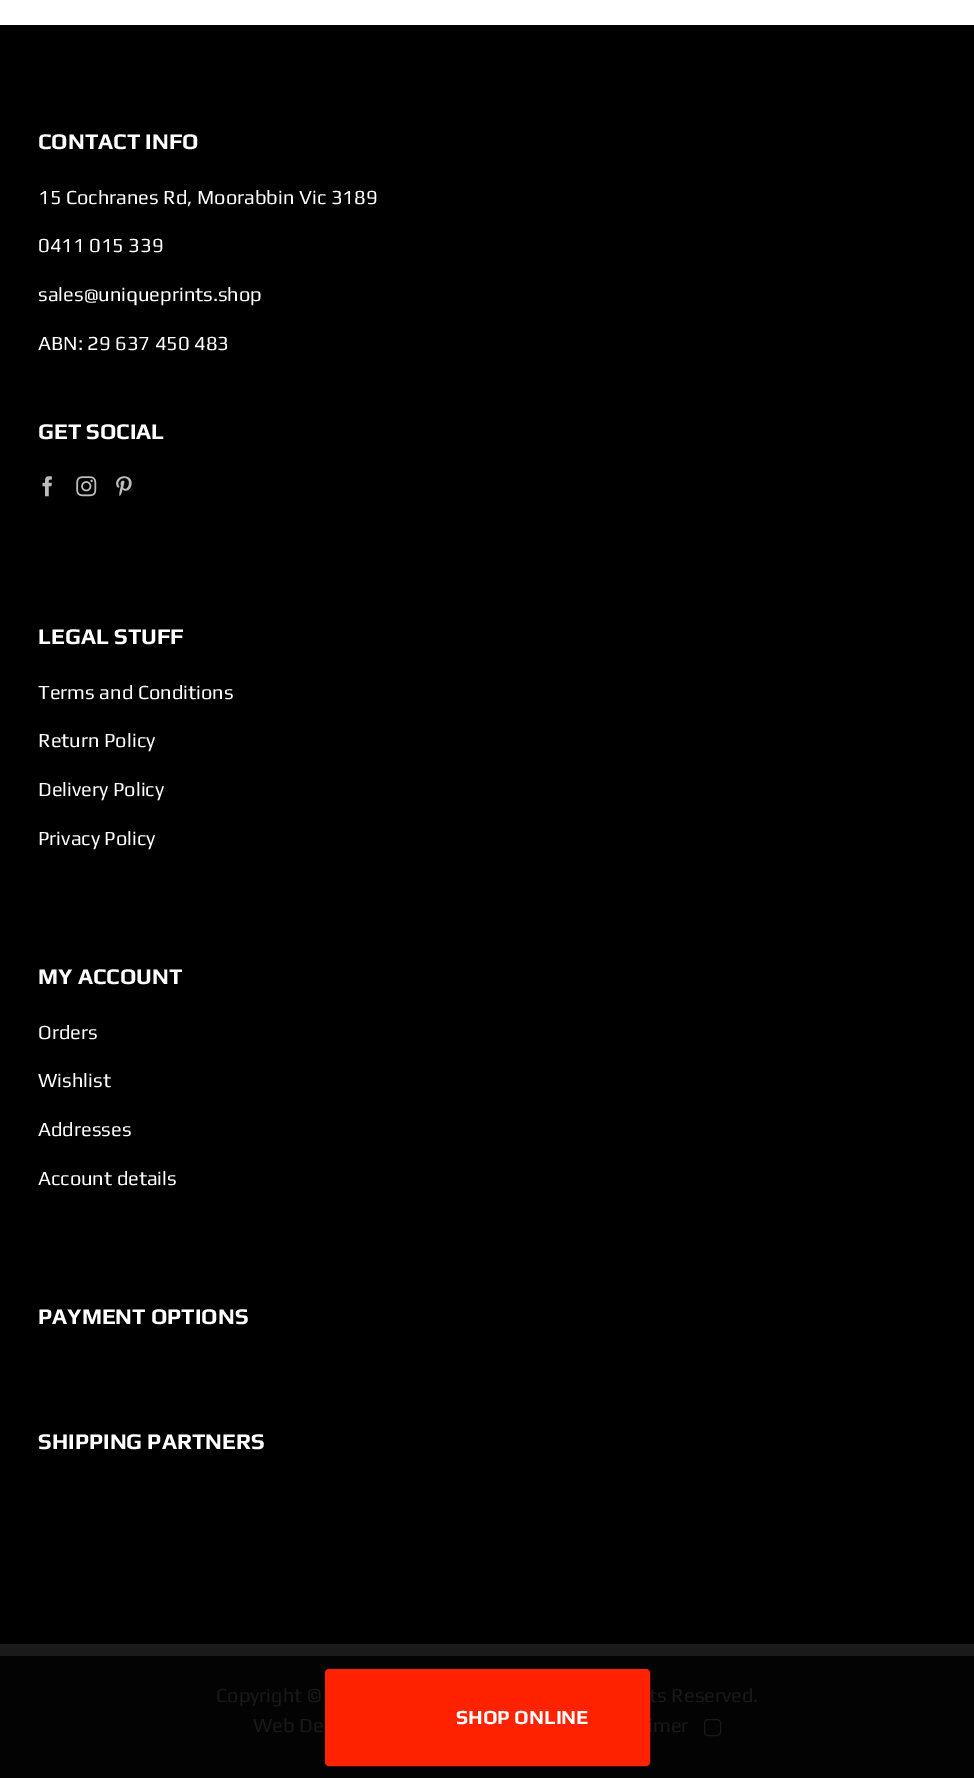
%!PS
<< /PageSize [974 1778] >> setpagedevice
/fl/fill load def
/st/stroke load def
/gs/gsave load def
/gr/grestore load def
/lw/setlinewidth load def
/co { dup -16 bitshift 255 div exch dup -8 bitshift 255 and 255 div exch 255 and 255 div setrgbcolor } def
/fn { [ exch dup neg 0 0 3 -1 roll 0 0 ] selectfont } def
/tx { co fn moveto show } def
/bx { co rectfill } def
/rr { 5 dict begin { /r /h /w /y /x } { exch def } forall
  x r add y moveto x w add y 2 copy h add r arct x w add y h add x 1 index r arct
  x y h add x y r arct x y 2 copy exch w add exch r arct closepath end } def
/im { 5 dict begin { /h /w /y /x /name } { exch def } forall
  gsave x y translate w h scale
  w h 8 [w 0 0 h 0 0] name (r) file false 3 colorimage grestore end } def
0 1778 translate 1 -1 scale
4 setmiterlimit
0 0 974 1778 16#FFFFFF bx
0 25 974 1619 16#000000 bx
(media/1.raw) 42 476 10 21 im
(media/2.raw) 76 476 21 21 im
(media/3.raw) 116 476 16 21 im
0 1644 974 12 16#1A1A1A bx
0 1656 974 122 16#030303 bx
16#191919 co
704.5 1719.5 16 16 3.5 rr st
(CONTACT INFO) 38 149 /Play-Bold 22.5 16#FFFFFF tx
(15 Cochranes Rd, Moorabbin Vic 3189) 38 204 /Play-Regular 20 16#FFFFFF tx
(0411 015 339) 38 252 /Play-Regular 20 16#FFFFFF tx
(sales@uniqueprints.shop) 38 301 /Play-Regular 20 16#FFFFFF tx
(ABN: 29 637 450 483) 38 350 /Play-Regular 20 16#FFFFFF tx
(GET SOCIAL) 38 439 /Play-Bold 22.5 16#FFFFFF tx
(LEGAL STUFF) 38 644 /Play-Bold 22.5 16#FFFFFF tx
(Terms and Conditions) 38 699 /Play-Regular 20 16#FFFFFF tx
(Return Policy) 38 747 /Play-Regular 20 16#FFFFFF tx
(Delivery Policy) 38 796 /Play-Regular 20 16#FFFFFF tx
(Privacy Policy) 38 845 /Play-Regular 20 16#FFFFFF tx
(MY ACCOUNT) 38 984 /Play-Bold 22.5 16#FFFFFF tx
(Orders) 38 1039 /Play-Regular 20 16#FFFFFF tx
(Wishlist) 38 1087 /Play-Regular 20 16#FFFFFF tx
(Addresses) 38 1136 /Play-Regular 20 16#FFFFFF tx
(Account details) 38 1185 /Play-Regular 20 16#FFFFFF tx
(PAYMENT OPTIONS) 38 1324 /Play-Bold 22.5 16#FFFFFF tx
(SHIPPING PARTNERS) 38 1449 /Play-Bold 22.5 16#FFFFFF tx
(Copyright ©) 216 1702 /Play-Regular 20 16#191919 tx
(ts Reserved.) 649 1702 /Play-Regular 20 16#191919 tx
(Web De) 253 1732 /Play-Regular 20 16#191919 tx
(imer) 648 1732 /Play-Regular 20 16#191919 tx
16#FF2200 co
326.5 1670.5 322 94 2.5 rr gs fl gr
3 lw
st
(SHOP ONLINE) 456 1724 /Play-Bold 20 16#FFFFFF tx
showpage
